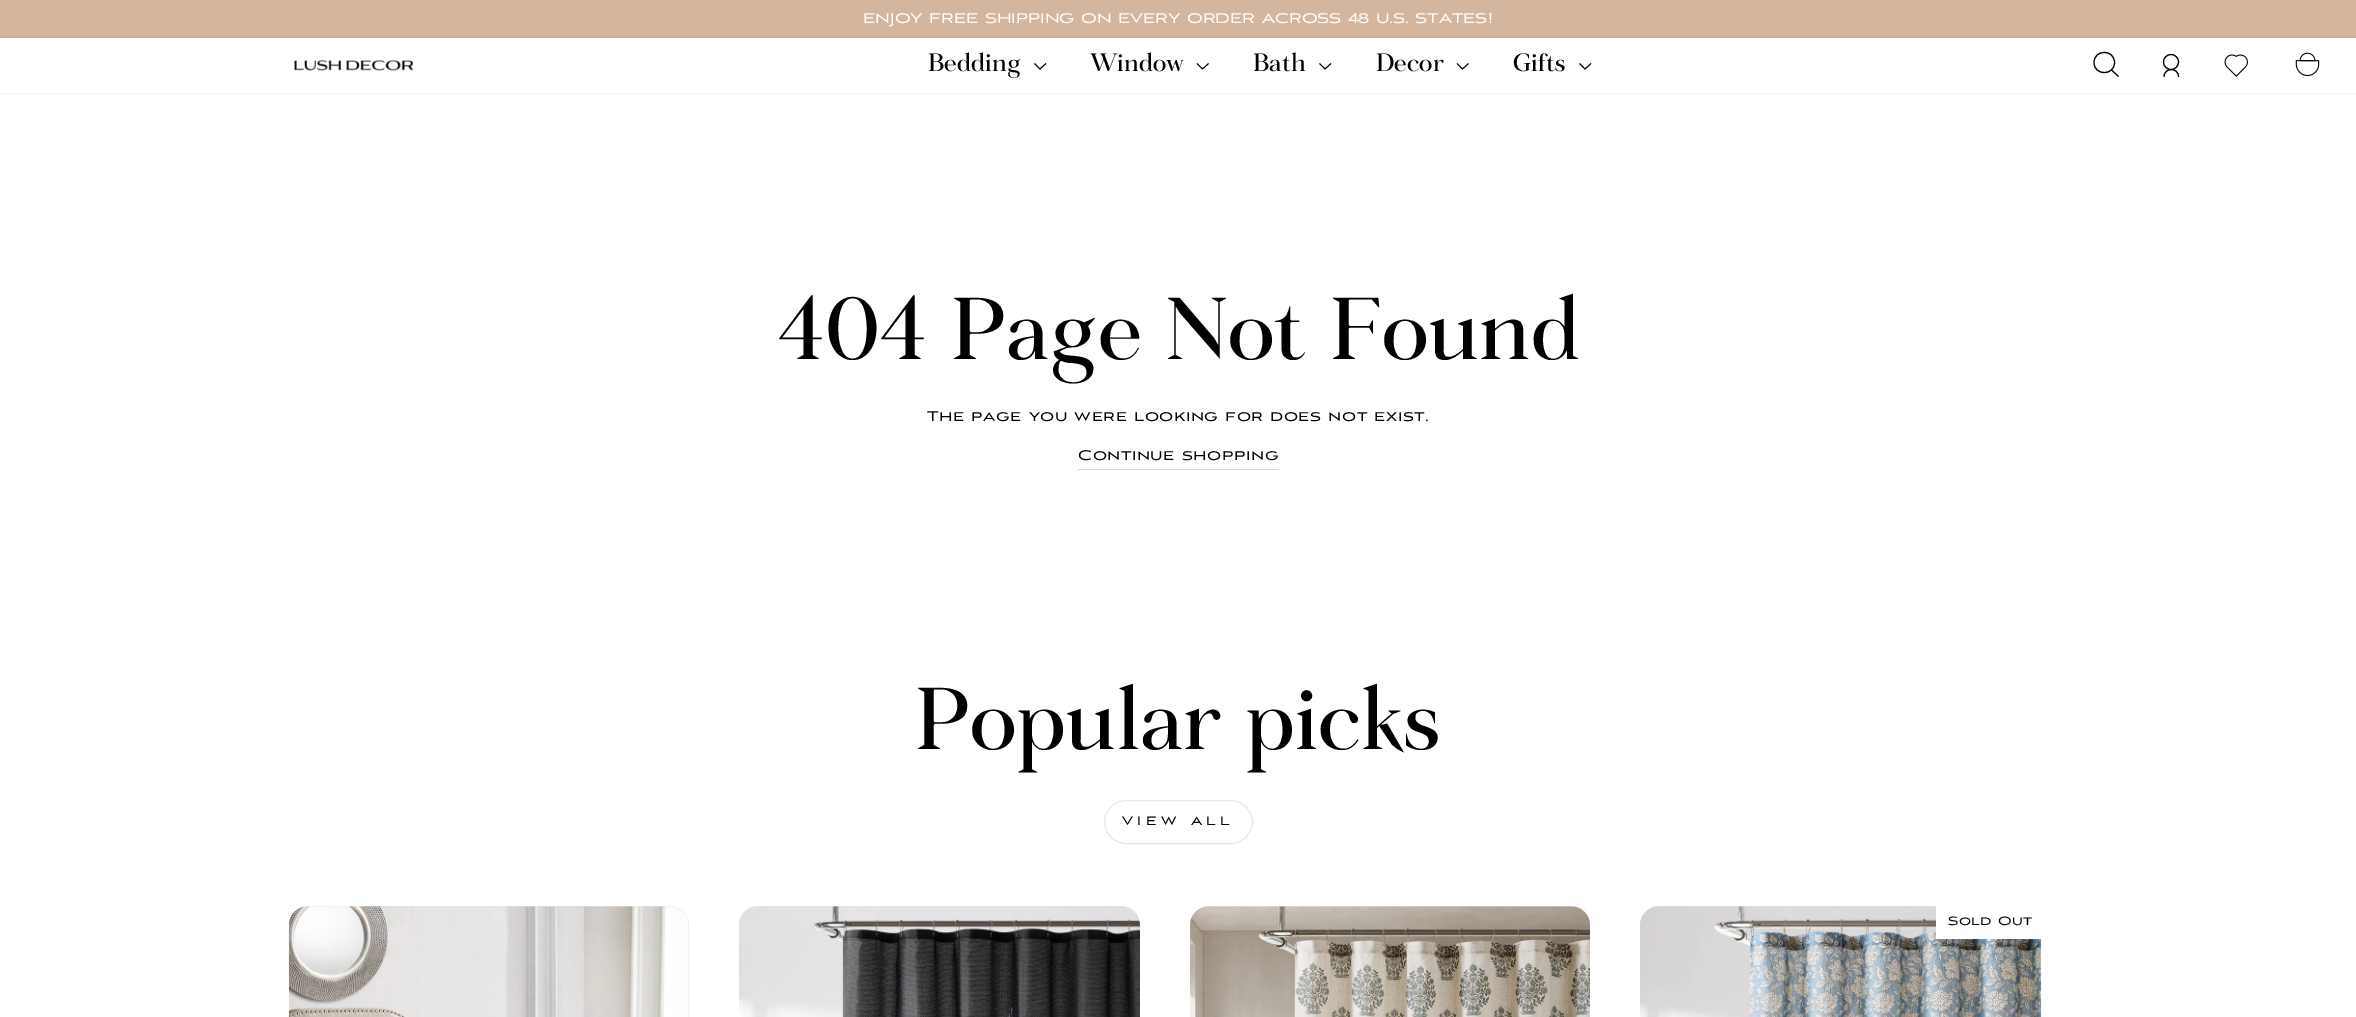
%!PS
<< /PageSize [2356 1017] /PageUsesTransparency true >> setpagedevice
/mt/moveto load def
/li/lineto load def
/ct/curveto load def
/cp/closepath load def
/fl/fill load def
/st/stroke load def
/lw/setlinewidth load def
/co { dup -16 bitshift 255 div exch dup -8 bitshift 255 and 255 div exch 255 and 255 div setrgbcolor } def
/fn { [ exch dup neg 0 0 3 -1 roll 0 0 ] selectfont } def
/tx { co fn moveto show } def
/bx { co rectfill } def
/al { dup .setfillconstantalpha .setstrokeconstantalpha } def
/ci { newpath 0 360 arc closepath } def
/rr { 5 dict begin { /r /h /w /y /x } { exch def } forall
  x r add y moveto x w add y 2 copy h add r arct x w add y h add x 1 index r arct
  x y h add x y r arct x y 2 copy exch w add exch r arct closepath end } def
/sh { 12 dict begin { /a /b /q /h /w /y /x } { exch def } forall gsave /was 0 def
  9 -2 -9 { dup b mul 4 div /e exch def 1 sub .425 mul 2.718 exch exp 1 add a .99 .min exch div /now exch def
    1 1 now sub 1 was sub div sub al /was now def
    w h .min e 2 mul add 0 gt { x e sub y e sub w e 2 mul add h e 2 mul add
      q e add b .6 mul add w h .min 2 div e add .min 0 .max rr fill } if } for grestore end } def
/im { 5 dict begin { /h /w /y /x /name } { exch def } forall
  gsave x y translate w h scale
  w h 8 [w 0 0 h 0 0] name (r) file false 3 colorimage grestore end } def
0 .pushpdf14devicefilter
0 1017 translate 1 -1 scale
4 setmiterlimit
0 0 2356 1017 16#FFFFFF bx
0 0 2356 38 16#D4B59E bx
16#000000 co
0 38 2356 55 0 .5 .2 sh
0 38 2356 55 16#FFFFFF bx
(media/1.raw) 293 60 121 11 im
16#000000 co
.9 lw
1034.5 63.5 mt 1040 69 li 1046 63.5 li st
1197 63.5 mt 1202.5 69 li 1208.5 63.5 li st
1319.5 63.5 mt 1325 69 li 1331 63.5 li st
1457 63.5 mt 1462.5 69 li 1468.5 63.5 li st
1579.5 63.5 mt 1585 69 li 1591 63.5 li st
1.1 lw
2114.5 62.5 mt 2114.5 76 2094 76 2094 62.5 ct 2094 49 2114.5 49 2114.5 62.5 ct cp 2118.5 76.5 mt 2111.5 70 li st
2171 62 7.5 ci st
2178.5 77 mt 2178.5 67 2164 67 2164 77 ct st
(media/2.raw) 2224 54 24 23 im
(media/3.raw) 2295 52 25 25 im
1078 469 201 1 16#D9D9D9 bx
16#E8E8E1 co
1 lw
1104.5 800.5 148 43 21.5 rr st
16#E5E5E5 co
289 906 400 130 19 rr fl
(media/4.raw) 288 906 401 111 im
739 906 401 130 19 rr fl
(media/5.raw) 739 906 401 111 im
1190 906 400 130 19 rr fl
(media/6.raw) 1190 906 400 111 im
1640 906 401 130 19 rr fl
(media/7.raw) 1640 906 402 111 im
1936 906 105 33 16#FFFFFF bx
(ENJOY FREE SHIPPING ON EVERY ORDER ACROSS 48 U.S. STATES!) 863 23 /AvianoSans-Regular 17.5 16#FFFFFF tx
(Bedding) 928 71 /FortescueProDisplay-Regular 25 16#000000 tx
(Window) 1090 71 /FortescueProDisplay-Regular 25 16#000000 tx
(Bath) 1253 71 /FortescueProDisplay-Regular 25 16#000000 tx
(Decor) 1376 71 /FortescueProDisplay-Regular 25 16#000000 tx
(Gifts) 1513 71 /FortescueProDisplay-Regular 25 16#000000 tx
(404 Page Not Found) 777 359 /FortescueProDisplay-Regular 87.5 16#000000 tx
/AvianoSans-Regular 17.5 fn
927 421 mt .45 0 (The page you were looking for does not exist.) ashow
1078 460 mt .45 0 (Continue shopping) ashow
(Popular picks) 915 749 /FortescueProDisplay-Regular 87.5 16#000000 tx
/AvianoSans-Regular 15 fn
1122 825 mt 4.5 0 (VIEW ALL) ashow
1948 925 mt .45 0 (Sold Out) ashow
.poppdf14devicefilter showpage
